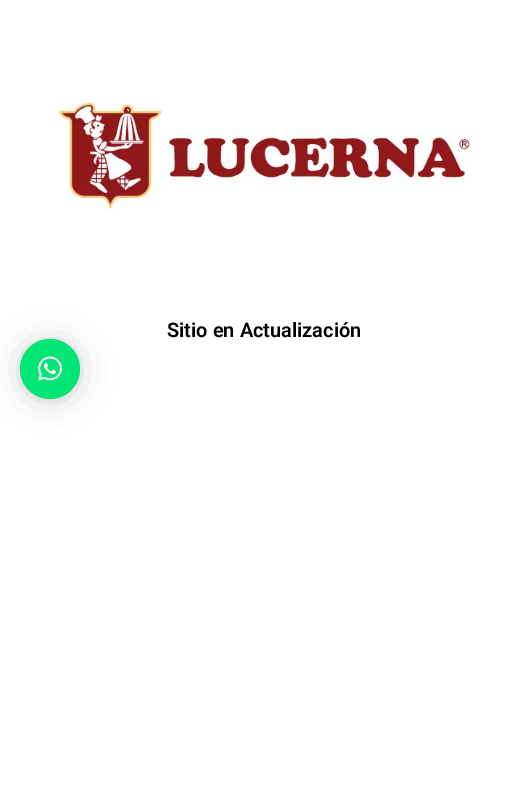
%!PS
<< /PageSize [528 787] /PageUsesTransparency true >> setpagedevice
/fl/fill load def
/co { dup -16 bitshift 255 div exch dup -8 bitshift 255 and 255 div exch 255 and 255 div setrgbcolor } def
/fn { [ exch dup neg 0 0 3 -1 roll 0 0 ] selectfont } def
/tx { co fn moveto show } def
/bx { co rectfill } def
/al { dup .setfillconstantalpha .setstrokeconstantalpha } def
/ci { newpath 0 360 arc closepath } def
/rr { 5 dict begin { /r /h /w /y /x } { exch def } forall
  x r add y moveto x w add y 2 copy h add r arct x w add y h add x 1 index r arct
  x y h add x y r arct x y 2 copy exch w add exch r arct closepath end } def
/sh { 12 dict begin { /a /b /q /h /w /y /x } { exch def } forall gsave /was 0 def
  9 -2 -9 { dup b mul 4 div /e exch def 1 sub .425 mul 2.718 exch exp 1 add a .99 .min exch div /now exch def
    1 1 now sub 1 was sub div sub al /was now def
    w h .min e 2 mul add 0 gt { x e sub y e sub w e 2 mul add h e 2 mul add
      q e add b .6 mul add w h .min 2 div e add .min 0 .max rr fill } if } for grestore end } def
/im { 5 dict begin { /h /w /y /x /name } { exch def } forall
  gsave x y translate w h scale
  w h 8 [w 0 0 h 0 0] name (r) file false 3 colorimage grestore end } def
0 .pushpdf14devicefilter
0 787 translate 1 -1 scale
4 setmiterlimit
0 0 528 787 16#FFFFFF bx
16#000000 co
20 341 60 60 30 16 .16 sh
20 340 60 60 30 3 .06 sh
16#01E675 co
50 369 30 ci fl
(media/1.raw) 38 356 24 25 im
(media/2.raw) 57 102 417 110 im
(Sitio en Actualización) 167 337 /Roboto-SemiBold 20 16#000000 tx
.poppdf14devicefilter showpage
